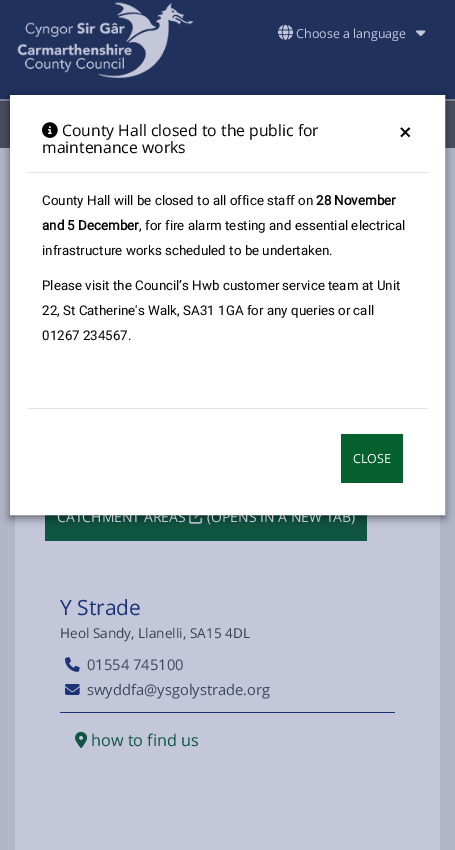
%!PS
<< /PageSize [455 850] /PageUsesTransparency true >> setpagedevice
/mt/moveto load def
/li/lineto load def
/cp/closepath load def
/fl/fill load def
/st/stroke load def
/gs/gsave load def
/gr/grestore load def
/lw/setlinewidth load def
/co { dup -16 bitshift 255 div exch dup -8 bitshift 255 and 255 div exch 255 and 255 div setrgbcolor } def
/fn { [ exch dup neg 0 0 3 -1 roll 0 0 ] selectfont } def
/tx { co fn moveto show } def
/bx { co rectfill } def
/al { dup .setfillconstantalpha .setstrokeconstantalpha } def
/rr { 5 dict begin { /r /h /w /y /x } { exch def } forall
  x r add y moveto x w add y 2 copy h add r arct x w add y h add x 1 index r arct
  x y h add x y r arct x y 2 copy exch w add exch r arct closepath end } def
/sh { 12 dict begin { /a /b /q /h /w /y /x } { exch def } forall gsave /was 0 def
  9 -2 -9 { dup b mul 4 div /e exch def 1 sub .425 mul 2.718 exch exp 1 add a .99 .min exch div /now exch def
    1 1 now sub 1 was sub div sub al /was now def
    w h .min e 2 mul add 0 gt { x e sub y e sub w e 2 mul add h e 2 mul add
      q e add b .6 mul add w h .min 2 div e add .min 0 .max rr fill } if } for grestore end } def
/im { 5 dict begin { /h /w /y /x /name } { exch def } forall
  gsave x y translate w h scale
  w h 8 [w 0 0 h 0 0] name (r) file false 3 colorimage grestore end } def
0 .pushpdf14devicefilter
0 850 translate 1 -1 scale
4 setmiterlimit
0 0 455 850 16#B3B6C9 bx
0 0 455 99 16#21315E bx
(media/1.raw) 17 2 177 77 im
(media/2.raw) 278 24 16 16 im
(media/3.raw) 416 30 10 7 im
0 101 455 47 16#4A4D5F bx
0 99 455 2 16#818496 bx
15 515 425 335 16#C4C7D9 bx
45 515 322 26 16#105541 bx
(media/5.raw) 189 515 14 9 im
16#000000 co
10 98 435 420 0 4.5 .5 sh
60 712 335 1 16#1D3378 bx
(media/6.raw) 65 657 15 15 im
(media/7.raw) 65 684 15 11 im
(media/8.raw) 75 731 13 17 im
(Choose a language) 296 38 /OpenSans-Regular 12.5 16#C4C7D9 tx
(CATCHMENT AREAS) 57 522 /OpenSans-Regular 14 16#C4C7D9 tx
(\(OPENS IN A NEW TAB\)) 207 522 /OpenSans-Regular 14 16#C4C7D9 tx
16#FFFFFF co
11 96 mt 444 96 li 444 514 li 11 514 li cp gs fl gr
2 lw
st
(01267 234567.) 42 340 /Roboto-Regular 13.35 16#000000 tx
(22, St Catherine's Walk, SA31 1GA for any queries or call) 42 315 /Roboto-Regular 13.35 16#000000 tx
(Please visit the Council’s Hwb customer service team at Unit) 42 290 /Roboto-Regular 13.35 16#000000 tx
(infrastructure works scheduled to be undertaken.) 42 255 /Roboto-Regular 13.35 16#000000 tx
(, for fire alarm testing and essential electrical) 139 230 /Roboto-Regular 13.35 16#000000 tx
(and 5 December) 42 230 /Roboto-Bold 13.35 16#000000 tx
(28 November) 316 205 /Roboto-Bold 13.35 16#000000 tx
(County Hall will be closed to all office staff on) 42 205 /Roboto-Regular 13.35 16#000000 tx
341 434 62 49 16#05612D bx
(CLOSE) 353 463 /OpenSans-Regular 12.5 16#FFFFFF tx
(maintenance works) 42 153 /OpenSans-Regular 15.75 16#000000 tx
(County Hall closed to the public for) 62 136 /OpenSans-Regular 15.75 16#000000 tx
(media/4.raw) 42 122 16 16 im
(×) 399 140 /OpenSans-Bold 21 16#000000 tx
27 408 401 1 16#E5E5E5 bx
27 172 401 1 16#E5E5E5 bx
(Y Strade) 60 615 /OpenSans-Regular 21 16#1D3378 tx
(Heol Sandy, Llanelli, SA15 4DL) 60 638 /OpenSans-Regular 13.6 16#3C3F51 tx
(01554 745100) 87 670 /OpenSans-Regular 14.75 16#3A485E tx
(swyddfa@ysgolystrade.org) 87 695 /OpenSans-Regular 14.75 16#3A485E tx
(how to find us) 91 746 /OpenSans-Regular 16.25 16#105541 tx
.poppdf14devicefilter showpage
